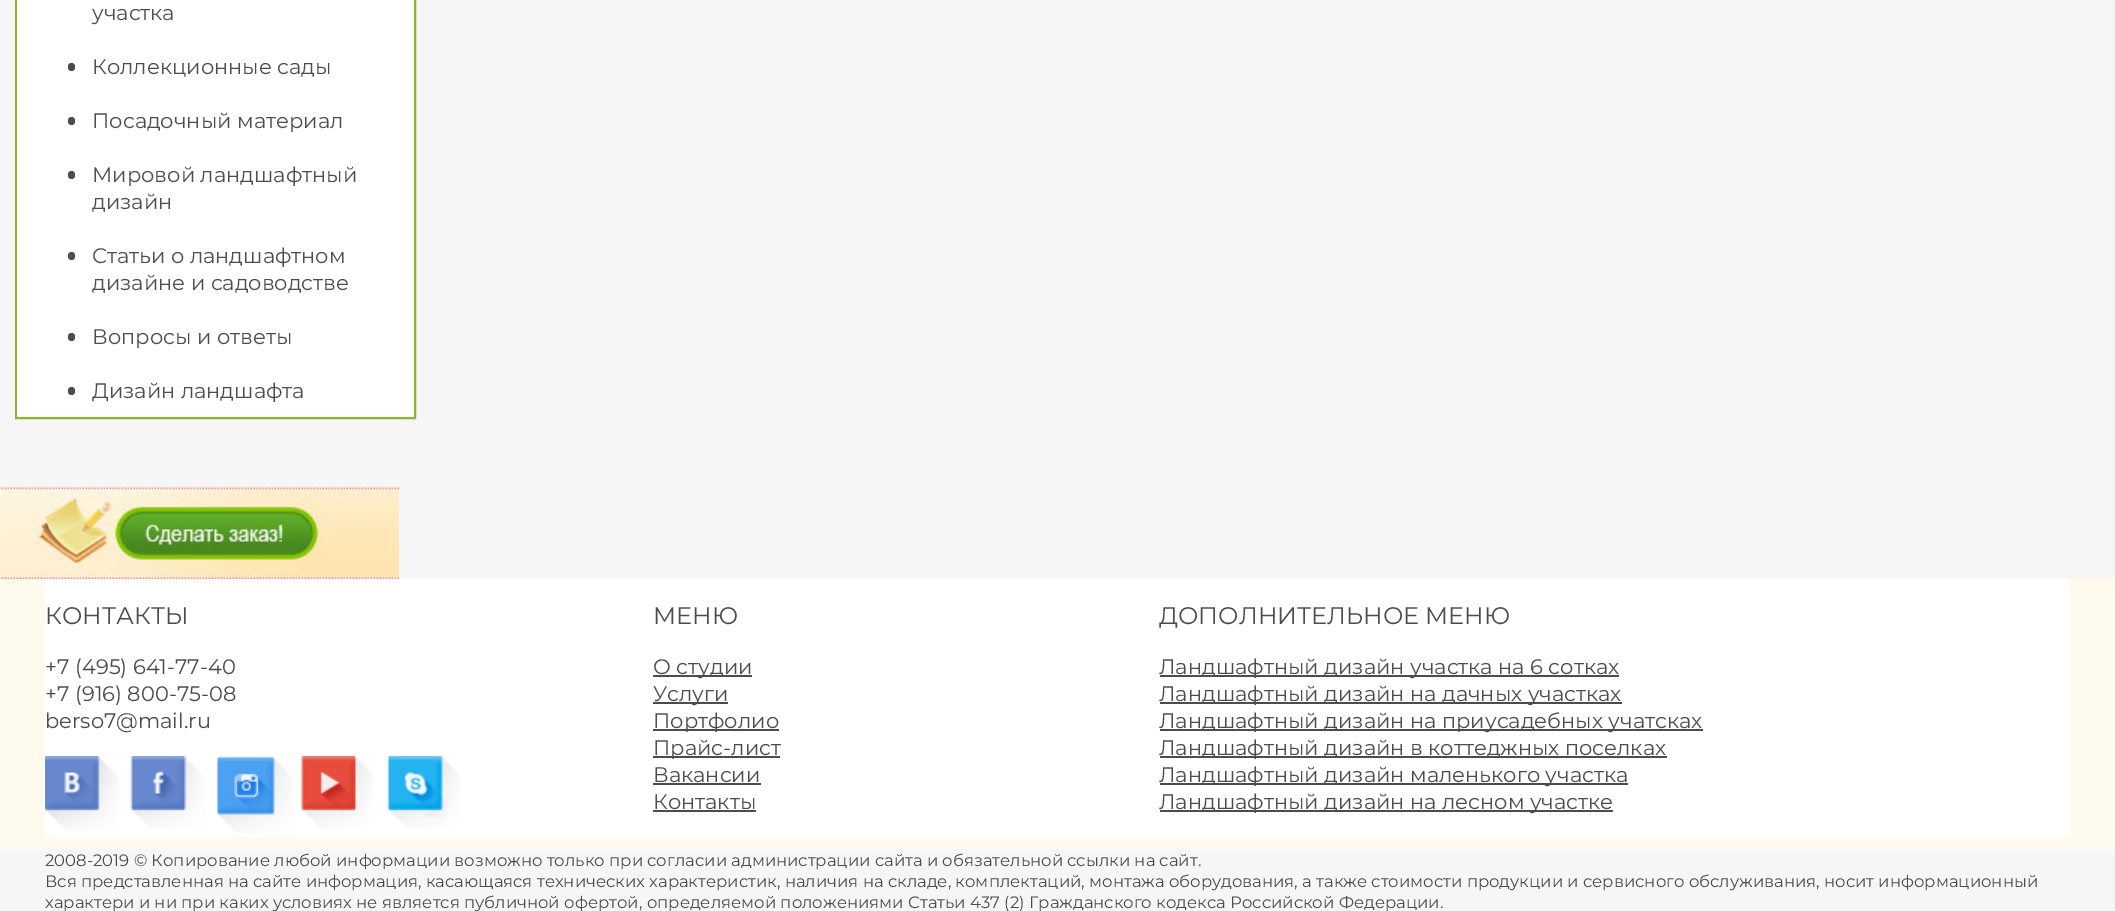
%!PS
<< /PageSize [2115 911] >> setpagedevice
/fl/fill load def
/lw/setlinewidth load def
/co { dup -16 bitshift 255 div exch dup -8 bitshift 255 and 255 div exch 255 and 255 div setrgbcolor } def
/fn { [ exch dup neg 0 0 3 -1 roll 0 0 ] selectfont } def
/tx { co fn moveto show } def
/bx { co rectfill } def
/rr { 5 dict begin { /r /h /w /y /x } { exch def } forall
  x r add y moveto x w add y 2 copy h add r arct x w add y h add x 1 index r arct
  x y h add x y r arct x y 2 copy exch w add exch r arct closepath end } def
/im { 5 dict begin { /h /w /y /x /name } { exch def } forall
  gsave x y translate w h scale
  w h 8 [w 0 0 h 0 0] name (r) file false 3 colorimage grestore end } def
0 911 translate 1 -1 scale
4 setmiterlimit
0 0 2115 911 16#FFFAED bx
0 0 2115 579 16#F6F6F6 bx
16#8BB632 co
2 lw
16 -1 399 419 rectstroke
17 0 397 417 16#FFFFFF bx
16#4F4E46 co
68 63 7 8 3.5 rr fl
68 117 7 8 3.5 rr fl
68 171 7 8 3.5 rr fl
68 252 7 8 3.5 rr fl
68 333 7 8 3.5 rr fl
68 387 7 8 3.5 rr fl
(media/1.raw) 0 487 399 92 im
45 579 2025 258 16#FFFFFF bx
(media/2.raw) 45 756 74 75 im
(media/3.raw) 130 756 75 73 im
(media/4.raw) 216 756 77 78 im
(media/5.raw) 301 756 72 73 im
(media/6.raw) 387 756 73 73 im
653 675 99 2 16#4C4C4C bx
653 702 75 2 16#4C4C4C bx
653 729 126 2 16#4C4C4C bx
653 756 127 2 16#4C4C4C bx
653 783 108 2 16#4C4C4C bx
653 810 103 2 16#4C4C4C bx
1160 675 459 2 16#4C4C4C bx
1160 702 462 2 16#4C4C4C bx
1160 729 543 2 16#4C4C4C bx
1160 756 507 2 16#4C4C4C bx
1160 783 468 2 16#4C4C4C bx
1160 810 453 2 16#4C4C4C bx
0 849 2115 62 16#F6F6F6 bx
(участка) 92 20 /Montserrat-Thin 21 16#4F4E46 tx
(Коллекционные сады) 92 74 /Montserrat-Thin 21 16#4F4E46 tx
(Посадочный материал) 92 128 /Montserrat-Thin 21 16#4F4E46 tx
(Мировой ландшафтный) 92 182 /Montserrat-Thin 21 16#4F4E46 tx
(дизайн) 92 209 /Montserrat-Thin 21 16#4F4E46 tx
(Статьи о ландшафтном) 92 263 /Montserrat-Thin 21 16#4F4E46 tx
(дизайне и садоводстве) 92 290 /Montserrat-Thin 21 16#4F4E46 tx
(Вопросы и ответы) 92 344 /Montserrat-Thin 21 16#4F4E46 tx
(Дизайн ландшафта) 92 398 /Montserrat-Thin 21 16#4F4E46 tx
(КОНТАКТЫ) 45 624 /Montserrat-Thin 24 16#4C4C4C tx
(+7 \(495\) 641-77-40) 45 674 /Montserrat-Thin 21 16#4C4C4C tx
(+7 \(916\) 800-75-08) 45 701 /Montserrat-Thin 21 16#4C4C4C tx
(berso7@mail.ru) 45 728 /Montserrat-Thin 21 16#4C4C4C tx
(МЕНЮ) 653 624 /Montserrat-Thin 24 16#4C4C4C tx
(О студии) 653 674 /Montserrat-Thin 21 16#4C4C4C tx
(Услуги) 653 701 /Montserrat-Thin 21 16#4C4C4C tx
(Портфолио) 653 728 /Montserrat-Thin 21 16#4C4C4C tx
(Прайс-лист) 653 755 /Montserrat-Thin 21 16#4C4C4C tx
(Вакансии) 653 782 /Montserrat-Thin 21 16#4C4C4C tx
(Контакты) 653 809 /Montserrat-Thin 21 16#4C4C4C tx
(ДОПОЛНИТЕЛЬНОЕ МЕНЮ) 1159 624 /Montserrat-Thin 24 16#4C4C4C tx
(Ландшафтный дизайн участка на 6 сотках) 1159 674 /Montserrat-Thin 21 16#4C4C4C tx
(Ландшафтный дизайн на дачных участках) 1159 701 /Montserrat-Thin 21 16#4C4C4C tx
(Ландшафтный дизайн на приусадебных учатсках) 1159 728 /Montserrat-Thin 21 16#4C4C4C tx
(Ландшафтный дизайн в коттеджных поселках) 1159 755 /Montserrat-Thin 21 16#4C4C4C tx
(Ландшафтный дизайн маленького участка) 1159 782 /Montserrat-Thin 21 16#4C4C4C tx
(Ландшафтный дизайн на лесном участке) 1159 809 /Montserrat-Thin 21 16#4C4C4C tx
(2008-2019 © Копирование любой информации возможно только при согласии администрации сайта и обязательной ссылки на сайт.) 45 866 /Montserrat-Thin 16.5 16#4C4C4C tx
(Вся представленная на сайте информация, касающаяся технических характеристик, наличия на складе, комплектаций, монтажа оборудования, а также стоимости продукции и сервисного обслуживания, носит информационный) 45 887 /Montserrat-Thin 16.5 16#4C4C4C tx
(характери и ни при каких условиях не является публичной офертой, определяемой положениями Статьи 437 \(2\) Гражданского кодекса Российской Федерации.) 45 908 /Montserrat-Thin 16.5 16#4C4C4C tx
showpage
